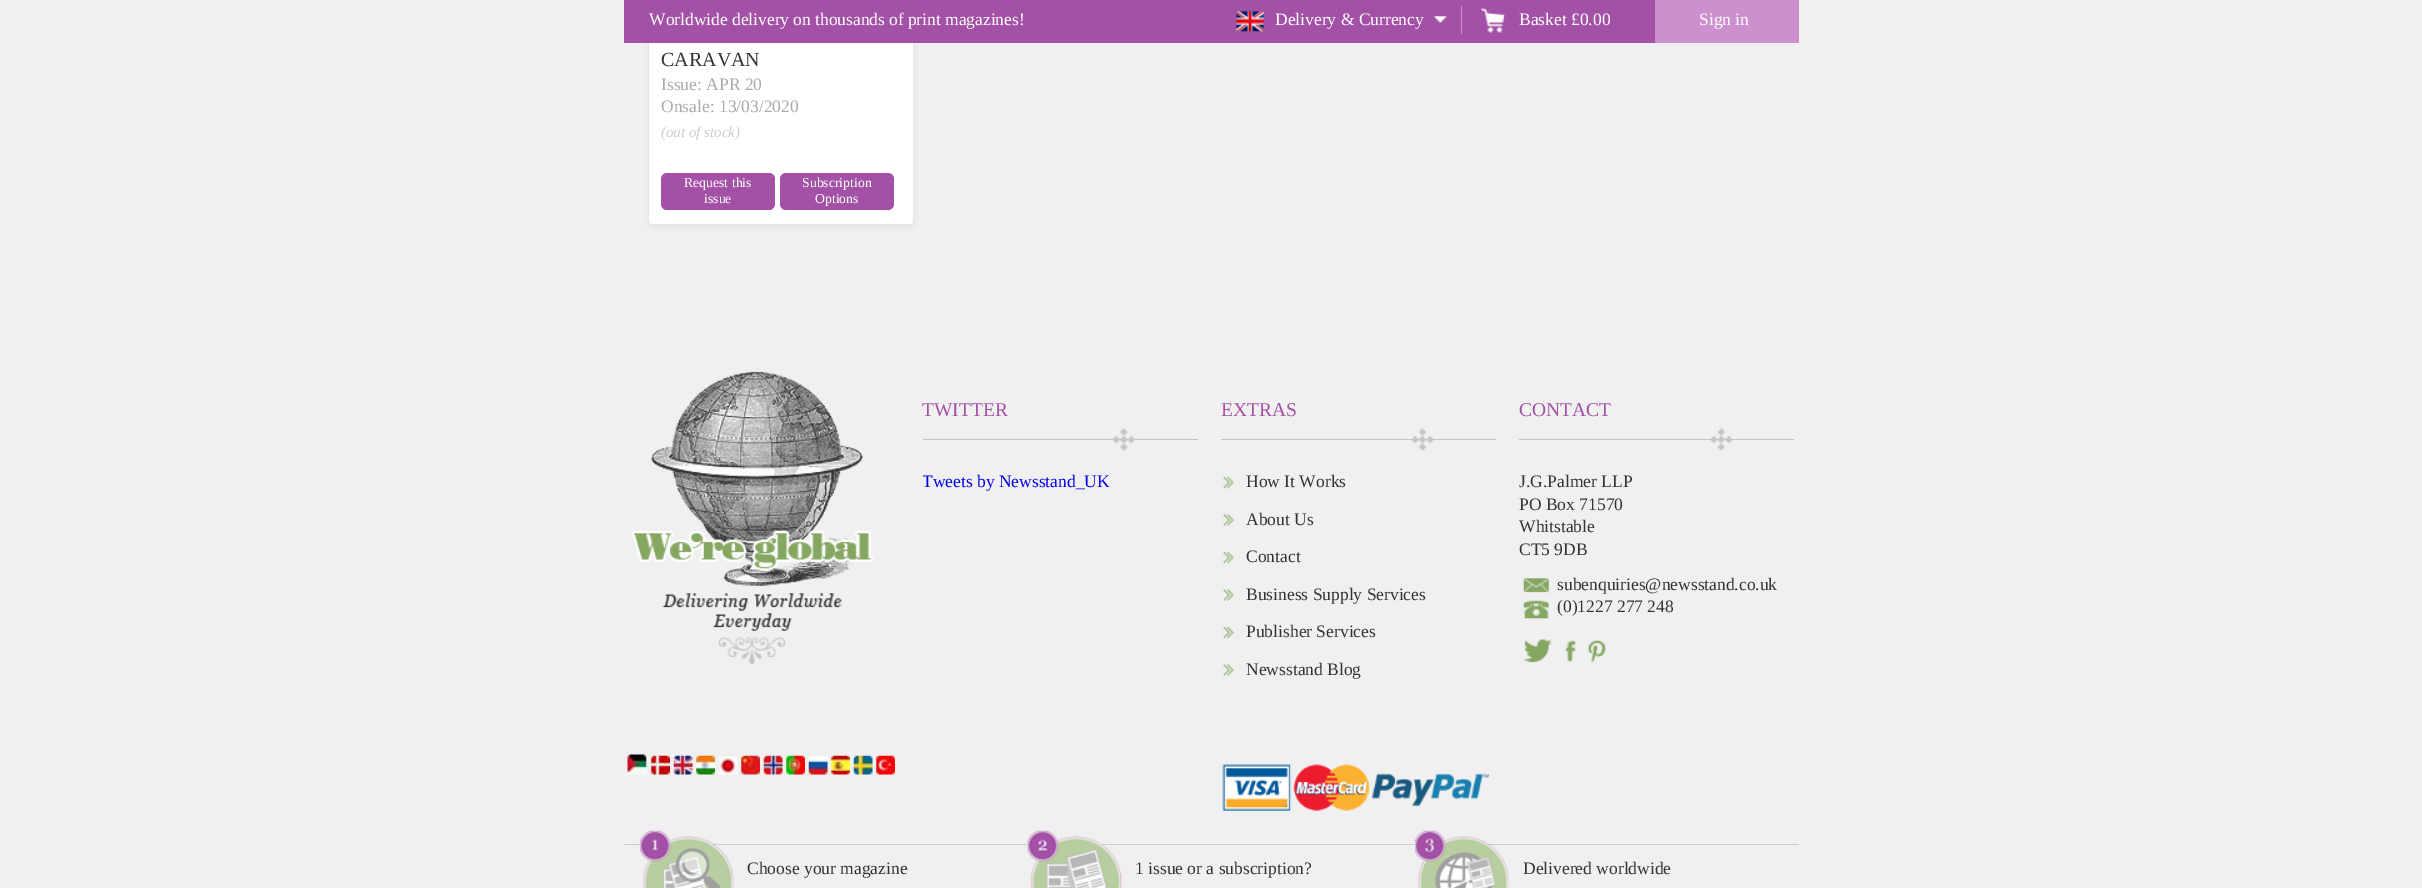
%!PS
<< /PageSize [2422 888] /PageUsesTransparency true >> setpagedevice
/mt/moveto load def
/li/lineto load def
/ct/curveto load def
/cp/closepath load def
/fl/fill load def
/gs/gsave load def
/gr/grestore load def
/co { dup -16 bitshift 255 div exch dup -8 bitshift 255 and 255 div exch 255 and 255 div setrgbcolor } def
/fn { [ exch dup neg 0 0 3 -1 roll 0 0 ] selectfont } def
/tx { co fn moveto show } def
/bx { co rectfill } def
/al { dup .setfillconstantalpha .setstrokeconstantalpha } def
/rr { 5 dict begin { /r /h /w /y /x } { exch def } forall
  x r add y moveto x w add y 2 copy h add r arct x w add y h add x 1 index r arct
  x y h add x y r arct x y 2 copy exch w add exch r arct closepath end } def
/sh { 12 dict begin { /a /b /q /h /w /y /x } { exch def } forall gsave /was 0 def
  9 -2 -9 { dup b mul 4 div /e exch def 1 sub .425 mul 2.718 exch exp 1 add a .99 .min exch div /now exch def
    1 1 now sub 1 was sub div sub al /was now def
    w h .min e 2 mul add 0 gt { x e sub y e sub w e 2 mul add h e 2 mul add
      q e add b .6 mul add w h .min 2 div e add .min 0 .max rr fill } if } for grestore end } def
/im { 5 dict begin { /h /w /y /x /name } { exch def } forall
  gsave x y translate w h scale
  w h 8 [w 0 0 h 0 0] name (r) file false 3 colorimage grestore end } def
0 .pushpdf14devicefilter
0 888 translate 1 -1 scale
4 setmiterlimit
0 0 2422 888 16#F0F0F0 bx
649 220 264 4 16#FFFFFF bx
16#DFDFDF co
649 26 264 200 4 3 1 sh
16#FFFFFF co
649 24 mt 913 24 li 913 220 li 913 222 911 224 909 224 ct 653 224 li 651 224 649 222 649 220 ct cp fl
624 0 1031 43 16#A351A6 bx
(media/1.raw) 1236 11 28 21 im
(media/2.raw) 1433 16 14 7 im
(media/3.raw) 1481 7 25 26 im
1461 6 1 28 16#CC90CE bx
1655 0 144 43 16#CC90CE bx
16#A351A6 co
661 173 114 37 6 rr fl
780 173 114 37 6 rr fl
(media/4.raw) 631 371 243 294 im
(media/5.raw) 627 754 21 21 im
(media/6.raw) 651 755 19 20 im
(media/7.raw) 673 755 20 20 im
(media/8.raw) 696 755 19 20 im
(media/9.raw) 719 756 19 19 im
(media/10.raw) 741 755 19 20 im
(media/11.raw) 763 755 20 20 im
(media/12.raw) 786 755 19 20 im
(media/13.raw) 808 756 20 19 im
(media/14.raw) 831 755 19 20 im
(media/15.raw) 853 755 20 20 im
(media/16.raw) 876 755 19 20 im
923 439 275 1 16#C4C4C4 bx
(media/17.raw) 1112 428 23 23 im
1221 439 275 1 16#C4C4C4 bx
(media/18.raw) 1411 428 23 23 im
(media/19.raw) 1223 476 11 13 im
(media/20.raw) 1223 514 11 12 im
(media/19.raw) 1223 551 11 13 im
(media/20.raw) 1223 589 11 12 im
(media/19.raw) 1223 626 11 13 im
(media/21.raw) 1223 664 11 12 im
(media/22.raw) 1222 764 267 47 im
1519 439 275 1 16#C4C4C4 bx
(media/23.raw) 1710 428 23 23 im
(media/24.raw) 1523 578 26 15 im
(media/25.raw) 1523 600 26 19 im
(media/26.raw) 1523 639 29 24 im
(media/27.raw) 1565 640 12 22 im
(media/28.raw) 1587 640 20 23 im
624 844 1175 1 16#CCCCCC bx
(media/29.raw) 639 830 95 58 im
(media/30.raw) 1026 830 96 58 im
(media/31.raw) 1414 830 95 58 im
/LiberationSerif-Regular 17.5 fn
16#FFFFFF co
649 25 mt -.25 0 32 (Worldwide delivery on thousands of print magazines!) widthshow
(Delivery & Currency) 1275 25 /LiberationSerif-Regular 17.5 16#FFFFFF tx
(Basket £0.00) 1519 25 /LiberationSerif-Regular 17.5 16#FFFFFF tx
(Sign in) 1699 25 /LiberationSerif-Regular 17.5 16#FFFFFF tx
(CARAVAN) 661 66 /LiberationSerif-Regular 20 16#333333 tx
(Issue: APR 20) 661 90 /LiberationSerif-Regular 17.5 16#AAAAAA tx
(Onsale: 13/03/2020) 661 112 /LiberationSerif-Regular 17.5 16#AAAAAA tx
(\(out of stock\)) 661 137 /LiberationSerif-Italic 15 16#CCCCCC tx
(Request this) 684 187 /LiberationSerif-Regular 13.75 16#FFFFFF tx
(issue) 704 203 /LiberationSerif-Regular 13.75 16#FFFFFF tx
(Subscription) 802 187 /LiberationSerif-Regular 13.75 16#FFFFFF tx
(Options) 815 203 /LiberationSerif-Regular 13.75 16#FFFFFF tx
(TWITTER) 922 416 /LiberationSerif-Regular 19.5 16#A351A6 tx
gs
923 471 275 23 rectclip
(Tweets by Newsstand_UK) 922 487 /LiberationSerif-Regular 17.5 16#0000EE tx
gr
(EXTRAS) 1221 416 /LiberationSerif-Regular 19.5 16#A351A6 tx
(How It Works) 1246 487 /LiberationSerif-Regular 17.5 16#333333 tx
(About Us) 1246 525 /LiberationSerif-Regular 17.5 16#333333 tx
(Contact) 1246 562 /LiberationSerif-Regular 17.5 16#333333 tx
(Business Supply Services) 1246 600 /LiberationSerif-Regular 17.5 16#333333 tx
(Publisher Services) 1246 637 /LiberationSerif-Regular 17.5 16#333333 tx
(Newsstand Blog) 1246 675 /LiberationSerif-Regular 17.5 16#333333 tx
(CONTACT) 1519 416 /LiberationSerif-Regular 19.5 16#A351A6 tx
(J.G.Palmer LLP) 1519 487 /LiberationSerif-Regular 17.5 16#333333 tx
(PO Box 71570) 1519 510 /LiberationSerif-Regular 17.5 16#333333 tx
(Whitstable) 1519 532 /LiberationSerif-Regular 17.5 16#333333 tx
(CT5 9DB) 1519 555 /LiberationSerif-Regular 17.5 16#333333 tx
(subenquiries@newsstand.co.uk) 1557 590 /LiberationSerif-Regular 17.5 16#333333 tx
(\(0\)1227 277 248) 1557 612 /LiberationSerif-Regular 17.5 16#333333 tx
(Choose your magazine) 747 874 /LiberationSerif-Regular 17.5 16#333333 tx
(1 issue or a subscription?) 1135 874 /LiberationSerif-Regular 17.5 16#333333 tx
(Delivered worldwide) 1523 874 /LiberationSerif-Regular 17.5 16#333333 tx
.poppdf14devicefilter showpage
